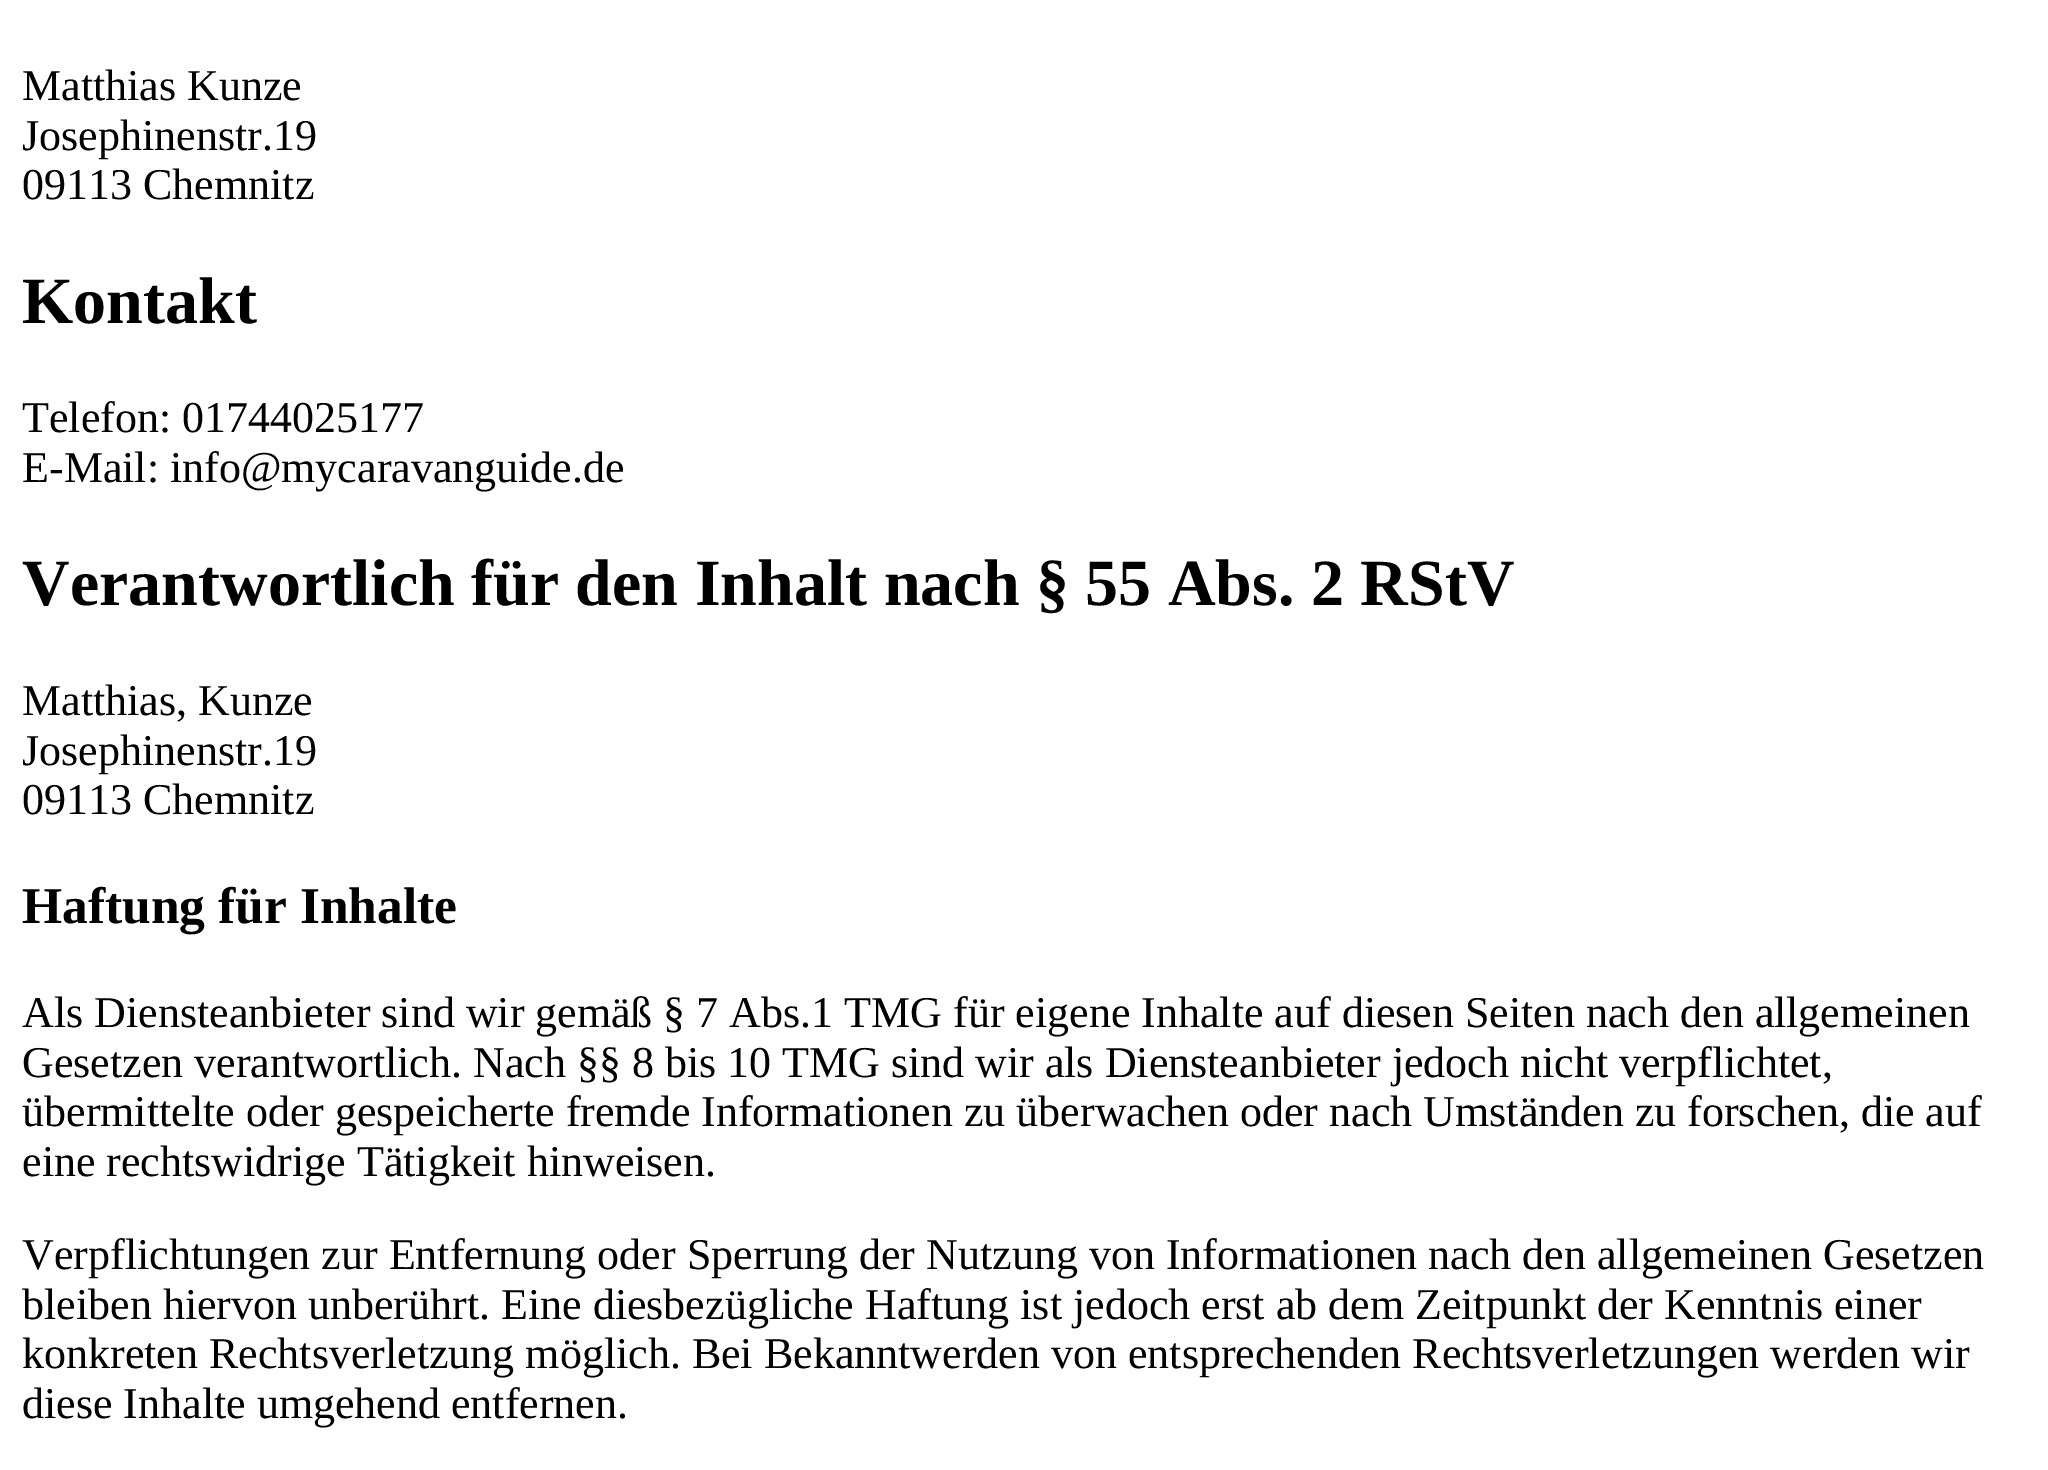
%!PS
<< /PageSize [2048 1470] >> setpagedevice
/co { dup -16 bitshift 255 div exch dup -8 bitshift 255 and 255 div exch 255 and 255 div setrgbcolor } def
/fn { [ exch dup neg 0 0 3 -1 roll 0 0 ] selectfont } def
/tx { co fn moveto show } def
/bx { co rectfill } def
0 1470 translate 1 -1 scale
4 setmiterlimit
0 0 2048 1470 16#FFFFFF bx
(Matthias Kunze) 22 100 /LiberationSerif-Regular 44 16#000000 tx
(Josephinenstr.19) 22 150 /LiberationSerif-Regular 44 16#000000 tx
(09113 Chemnitz) 22 199 /LiberationSerif-Regular 44 16#000000 tx
(Kontakt) 22 323 /LiberationSerif-Bold 66 16#000000 tx
(Telefon: 01744025177) 22 432 /LiberationSerif-Regular 44 16#000000 tx
(E-Mail: info@mycaravanguide.de) 22 482 /LiberationSerif-Regular 44 16#000000 tx
(Verantwortlich für den Inhalt nach § 55 Abs. 2 RStV) 22 605 /LiberationSerif-Bold 66 16#000000 tx
(Matthias, Kunze) 22 715 /LiberationSerif-Regular 44 16#000000 tx
(Josephinenstr.19) 22 765 /LiberationSerif-Regular 44 16#000000 tx
(09113 Chemnitz) 22 814 /LiberationSerif-Regular 44 16#000000 tx
(Haftung für Inhalte) 22 923 /LiberationSerif-Bold 51.5 16#000000 tx
(Als Diensteanbieter sind wir gemäß § 7 Abs.1 TMG für eigene Inhalte auf diesen Seiten nach den allgemeinen) 22 1027 /LiberationSerif-Regular 44 16#000000 tx
(Gesetzen verantwortlich. Nach §§ 8 bis 10 TMG sind wir als Diensteanbieter jedoch nicht verpflichtet,) 22 1077 /LiberationSerif-Regular 44 16#000000 tx
(übermittelte oder gespeicherte fremde Informationen zu überwachen oder nach Umständen zu forschen, die auf) 22 1126 /LiberationSerif-Regular 44 16#000000 tx
(eine rechtswidrige Tätigkeit hinweisen.) 22 1176 /LiberationSerif-Regular 44 16#000000 tx
(Verpflichtungen zur Entfernung oder Sperrung der Nutzung von Informationen nach den allgemeinen Gesetzen) 22 1269 /LiberationSerif-Regular 44 16#000000 tx
(bleiben hiervon unberührt. Eine diesbezügliche Haftung ist jedoch erst ab dem Zeitpunkt der Kenntnis einer) 22 1319 /LiberationSerif-Regular 44 16#000000 tx
(konkreten Rechtsverletzung möglich. Bei Bekanntwerden von entsprechenden Rechtsverletzungen werden wir) 22 1368 /LiberationSerif-Regular 44 16#000000 tx
(diese Inhalte umgehend entfernen.) 22 1418 /LiberationSerif-Regular 44 16#000000 tx
showpage
